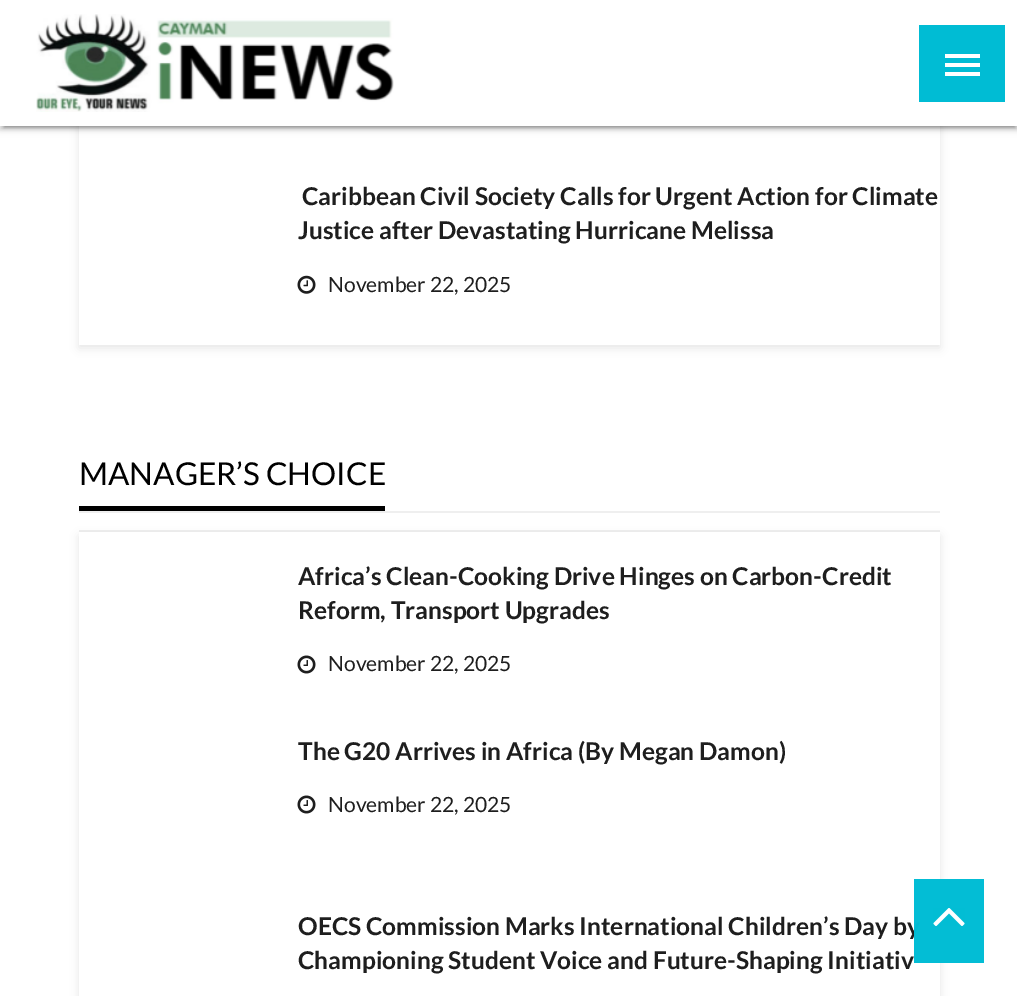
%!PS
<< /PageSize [1017 996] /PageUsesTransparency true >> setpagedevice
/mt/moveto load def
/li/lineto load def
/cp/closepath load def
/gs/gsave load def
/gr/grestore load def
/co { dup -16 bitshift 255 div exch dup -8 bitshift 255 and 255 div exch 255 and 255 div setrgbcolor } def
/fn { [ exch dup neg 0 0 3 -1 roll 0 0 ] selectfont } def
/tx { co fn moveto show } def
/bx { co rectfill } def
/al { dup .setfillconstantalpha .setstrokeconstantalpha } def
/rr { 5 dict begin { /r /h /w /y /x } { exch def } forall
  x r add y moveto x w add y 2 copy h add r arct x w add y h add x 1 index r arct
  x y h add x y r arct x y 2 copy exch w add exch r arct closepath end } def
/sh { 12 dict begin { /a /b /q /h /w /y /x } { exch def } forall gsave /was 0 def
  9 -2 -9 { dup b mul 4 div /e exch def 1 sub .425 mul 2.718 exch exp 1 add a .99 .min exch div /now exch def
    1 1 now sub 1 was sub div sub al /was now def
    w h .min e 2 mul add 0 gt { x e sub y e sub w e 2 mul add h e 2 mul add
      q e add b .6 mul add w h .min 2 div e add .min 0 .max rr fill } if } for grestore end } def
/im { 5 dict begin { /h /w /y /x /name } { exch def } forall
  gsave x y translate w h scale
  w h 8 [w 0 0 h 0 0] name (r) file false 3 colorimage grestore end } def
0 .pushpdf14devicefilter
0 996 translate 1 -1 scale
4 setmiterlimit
0 0 1017 996 16#FFFFFF bx
16#000000 co
0 2 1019 126 0 4.5 .12 sh
4 9 1011 119 0 1 .2 sh
0 4 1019 126 0 2 .14 sh
gs
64 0 mt 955 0 li 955 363 li 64 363 li cp 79 -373 mt 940 -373 li 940 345 li 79 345 li cp eoclip newpath
79 -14 861 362 0 4.5 .1 sh
gr
0 0 1017 126 16#FFFFFF bx
(media/1.raw) 36 14 358 98 im
919 25 86 77 16#00BCD4 bx
945 54 35 4 16#FFFFFF bx
945 63 35 4 16#FFFFFF bx
945 72 35 4 16#FFFFFF bx
(media/2.raw) 297 275 19 19 im
79 530 861 2 16#EFEFEF bx
79 511 861 2 16#EFEFEF bx
79 506 306 5 16#000000 bx
gs
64 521 mt 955 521 li 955 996 li 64 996 li cp 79 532 mt 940 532 li 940 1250 li 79 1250 li cp eoclip newpath
79 536 861 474 0 4.5 .1 sh
gr
(media/3.raw) 297 655 19 19 im
(media/3.raw) 297 795 19 19 im
(Caribbean Civil Society Calls for Urgent Action for Climate) 302 205 /Lato-Bold 24.5 16#1E1E1E tx
(Justice after Devastating Hurricane Melissa) 298 239 /Lato-Bold 24.5 16#1E1E1E tx
(November 22, 2025) 328 292 /Lato-Regular 21 16#1E1E1E tx
(MANAGER’S CHOICE) 79 485 /Lato-Regular 31.5 16#000000 tx
(Africa’s Clean-Cooking Drive Hinges on Carbon-Credit) 298 585 /Lato-Bold 24.5 16#1E1E1E tx
(Reform, Transport Upgrades) 298 619 /Lato-Bold 24.5 16#1E1E1E tx
(November 22, 2025) 328 671 /Lato-Regular 21 16#1E1E1E tx
(The G20 Arrives in Africa \(By Megan Damon\)) 298 760 /Lato-Bold 24.5 16#1E1E1E tx
(November 22, 2025) 328 812 /Lato-Regular 21 16#1E1E1E tx
(OECS Commission Marks International Children’s Day by) 298 935 /Lato-Bold 24.5 16#1E1E1E tx
(Championing Student Voice and Future-Shaping Initiativ) 298 969 /Lato-Bold 24.5 16#1E1E1E tx
0.99 al
914 879 70 84 16#00BCD4 bx
1 al
(media/4.raw) 933 908 32 18 im
.poppdf14devicefilter showpage
